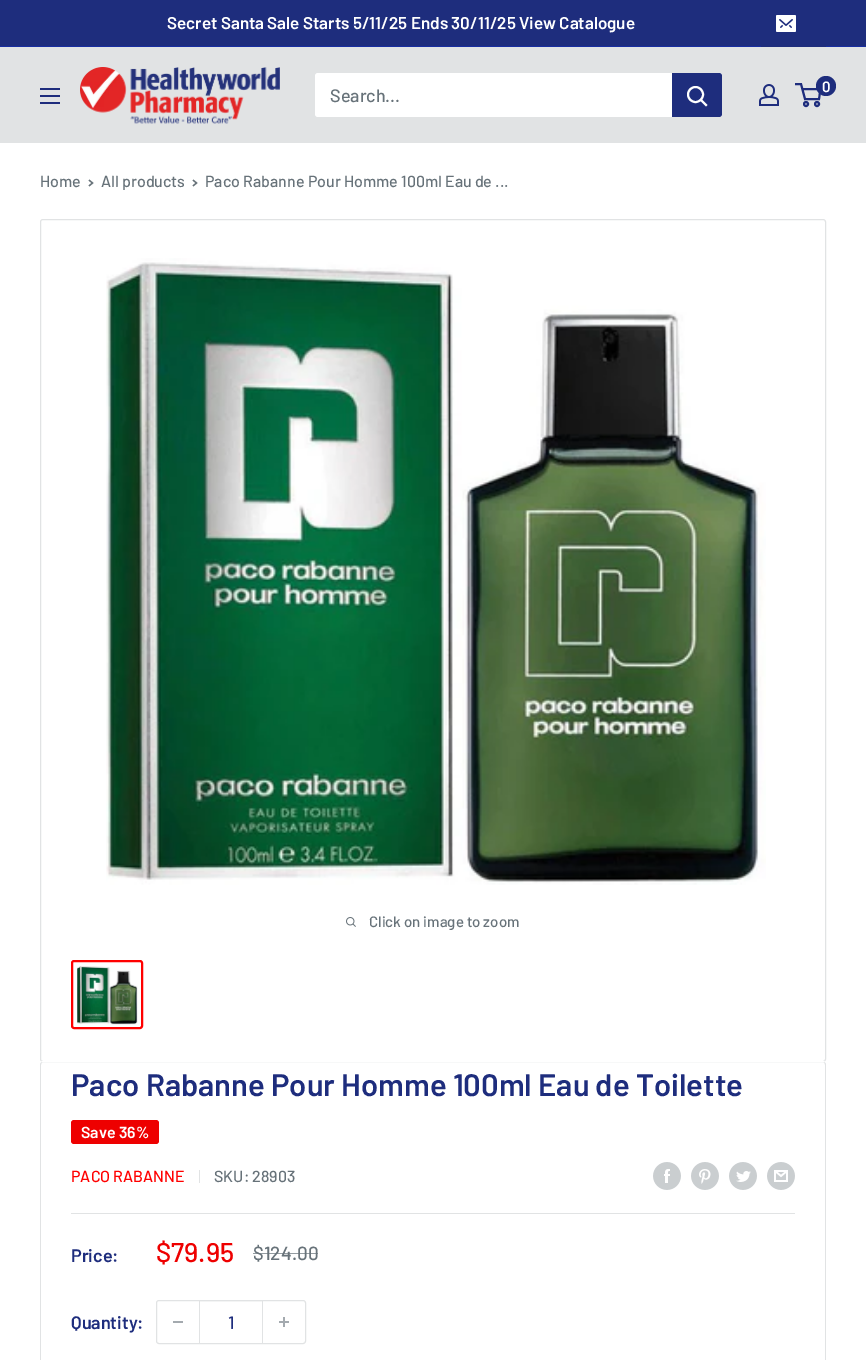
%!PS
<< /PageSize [866 1360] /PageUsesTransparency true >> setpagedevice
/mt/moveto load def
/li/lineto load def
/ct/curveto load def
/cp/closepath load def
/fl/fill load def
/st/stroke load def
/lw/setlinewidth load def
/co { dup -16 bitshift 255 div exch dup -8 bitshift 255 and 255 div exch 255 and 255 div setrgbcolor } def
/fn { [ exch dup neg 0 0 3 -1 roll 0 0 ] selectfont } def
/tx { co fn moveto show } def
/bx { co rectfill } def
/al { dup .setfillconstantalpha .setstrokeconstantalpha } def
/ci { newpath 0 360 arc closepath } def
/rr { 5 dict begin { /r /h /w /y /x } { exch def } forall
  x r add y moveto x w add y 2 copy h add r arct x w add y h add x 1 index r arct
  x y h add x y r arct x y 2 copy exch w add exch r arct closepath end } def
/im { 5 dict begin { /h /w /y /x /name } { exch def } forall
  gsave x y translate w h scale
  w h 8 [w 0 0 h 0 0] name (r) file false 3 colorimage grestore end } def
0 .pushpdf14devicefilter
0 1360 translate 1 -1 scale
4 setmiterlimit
0 0 866 1360 16#FFFFFF bx
0 0 866 46 16#1E2D7D bx
0 46 866 1 16#182EA2 bx
761 46 65 1 16#1E2D7D bx
(media/1.raw) 776 15 20 17 im
0 47 866 96 16#E1E3E4 bx
(media/2.raw) 40 88 20 16 im
(media/3.raw) 80 67 200 57 im
16#FFFFFF co
315 73 407 44 3 rr fl
16#1E2D7D co
672 73 mt 719 73 li 720.5 73 722 74.5 722 76 ct 722 114 li 722 115.5 720.5 117 719 117 ct 672 117 li cp fl
16#FFFFFF co
2 lw
2 setlinecap
706 105 mt 701 100 li st
0 setlinecap
695.5 94.5 7.5 ci st
(media/4.raw) 759 84 20 22 im
16#1E2D7D co
806 104 2 ci st
817 104 2 ci st
802.5 89 mt 820.5 89 li 819 99 li 805 99 li 801 84 li 795 84 li st
826 86 10 ci fl
16#677279 co
1.3 lw
2 setlinecap
89.5 180.5 mt 92.5 183 li 89.5 185.5 li st
193.5 180.5 mt 196.5 183 li 193.5 185.5 li st
16#E1E3E4 co
1 lw
0 setlinecap
40.5 219.5 785 842 2.5 rr st
(media/5.raw) 106 258 660 627 im
(media/6.raw) 346 917 10 10 im
16#FF0000 co
2 lw
72 961 70 67 2 rr st
(media/7.raw) 77 966 61 59 im
16#FFFFFF co
43 1061 mt 41 1061 40 1063 40 1065 ct 40 1063 41 1062 43 1062 ct 823 1062 li 825 1062 826 1063 826 1065 ct 826 1063 825 1061 823 1061 ct cp fl
16#E1E3E4 co
43 1062 mt 823 1062 li 825 1062 826 1063 826 1065 ct 826 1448 li 826 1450 825 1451 823 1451 ct 43 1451 li 41 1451 40 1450 40 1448 ct 40 1065 li 40 1063 41 1062 43 1062 ct cp 43 1062 mt 823 1062 li 824 1062 825 1063 825 1065 ct 825 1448 li 825 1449 824 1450 823 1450 ct 43 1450 li 42 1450 41 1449 41 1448 ct 41 1065 li 41 1063 42 1062 43 1062 ct cp eofill
16#EE0000 co
71 1120 88 24 3 rr fl
199 1170 1 13 16#E1E3E4 bx
(media/8.raw) 653 1162 28 28 im
(media/9.raw) 691 1162 28 28 im
(media/10.raw) 729 1162 28 28 im
(media/11.raw) 767 1162 28 28 im
71 1213 724 1 16#E1E3E4 bx
1 lw
156.5 1300.5 149 43 2.5 rr st
173 1321 10 2 16#A4AAAF bx
200 1301 62 1 16#F3F4F4 bx
262 1301 1 42 16#E1E3E4 bx
199 1301 1 42 16#E1E3E4 bx
(media/12.raw) 279 1317 10 10 im
(Secret Santa Sale Starts 5/11/25 Ends 30/11/25 View Catalogue) 167 29 /Barlow-SemiBold 17 16#FFFFFF tx
(Search...) 330 102 /Barlow-Medium 18 16#677279 tx
(0) 822 92 /Barlow-SemiBold 15 16#FFFFFF tx
(Home) 40 187 /Barlow-Medium 16 16#677279 tx
(All products) 101 187 /Barlow-Medium 16 16#677279 tx
(Paco Rabanne Pour Homme 100ml Eau de ...) 205 187 /Barlow-Medium 16 16#677279 tx
(Click on image to zoom) 369 927 /Barlow-Medium 15 16#677279 tx
(Paco Rabanne Pour Homme 100ml Eau de Toilette) 71 1096 /Barlow-SemiBold 31 16#1E2D7D tx
(Save 36%) 81 1138 /Barlow-SemiBold 16 16#FFFFFF tx
(PACO RABANNE) 71 1182 /Barlow-Medium 16 16#FF0000 tx
(SKU: 28903) 214 1182 /Barlow-Medium 16 16#677279 tx
(Price:) 71 1262 /Barlow-SemiBold 18 16#1E2D7D tx
($79.95) 156 1262 /Barlow-Medium 27 16#EE0000 tx
($124.00) 253 1260 /Barlow-Medium 19 16#677279 tx
0.7 al
253 1253 65 1 16#677279 bx
1 al
(Quantity:) 71 1329 /Barlow-SemiBold 18 16#1E2D7D tx
(1) 228 1329 /Barlow-Medium 18 16#1E2D7D tx
.poppdf14devicefilter showpage
